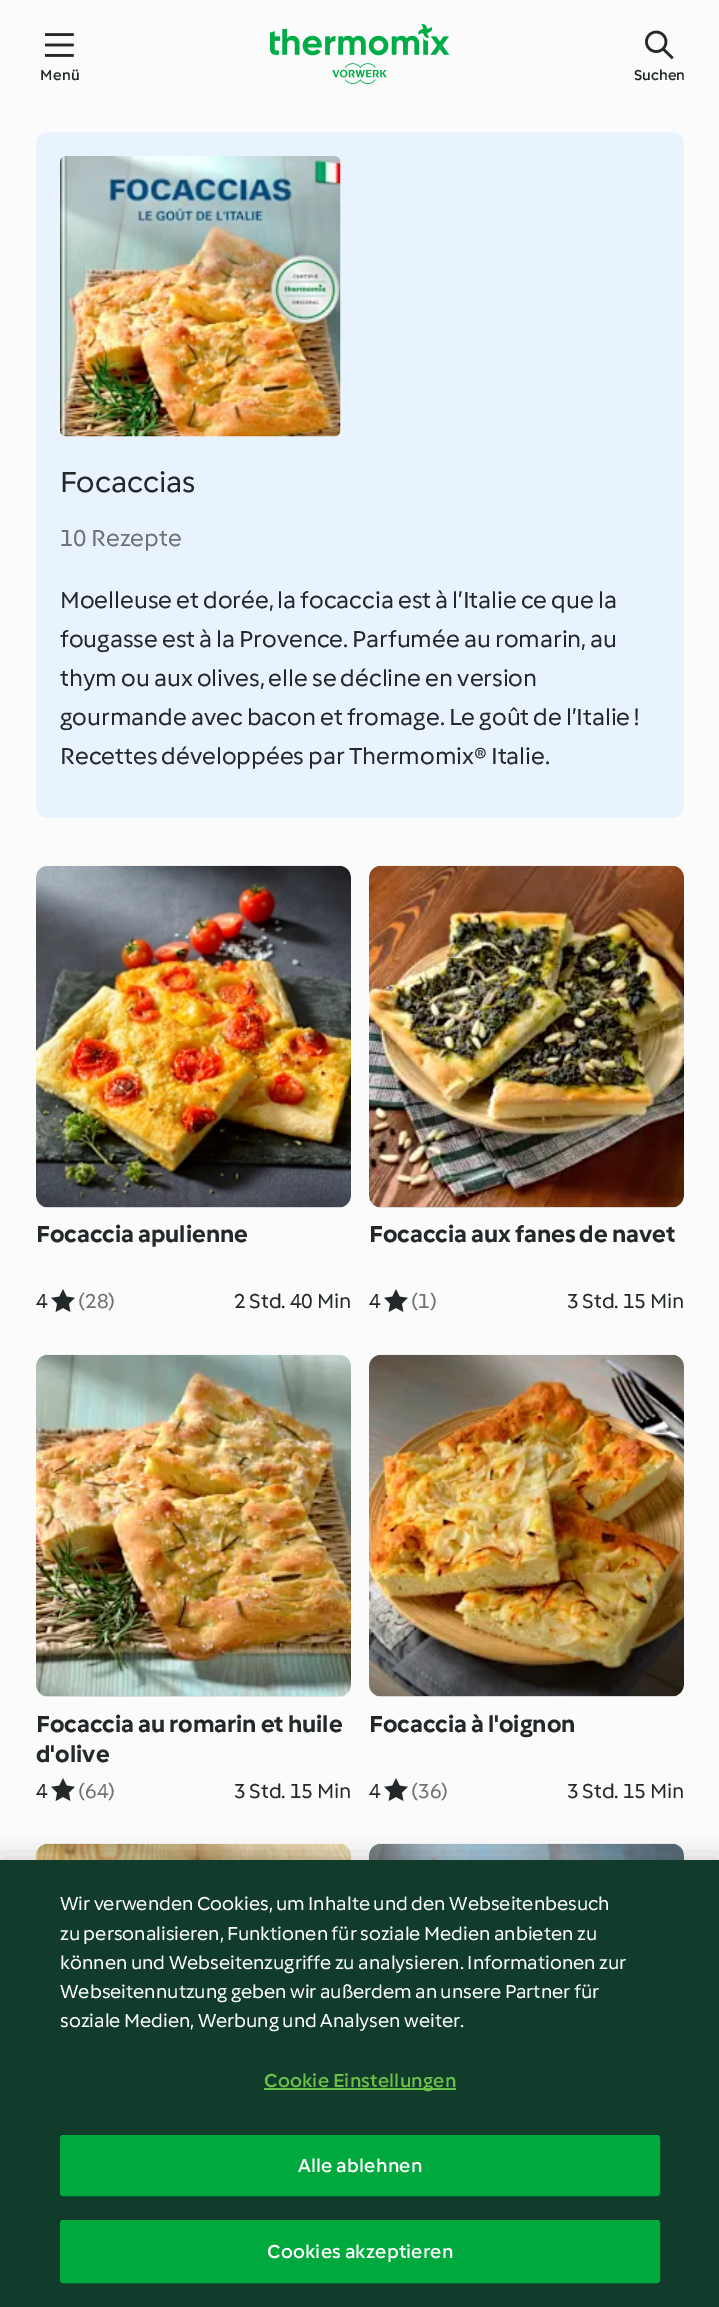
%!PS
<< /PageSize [719 2307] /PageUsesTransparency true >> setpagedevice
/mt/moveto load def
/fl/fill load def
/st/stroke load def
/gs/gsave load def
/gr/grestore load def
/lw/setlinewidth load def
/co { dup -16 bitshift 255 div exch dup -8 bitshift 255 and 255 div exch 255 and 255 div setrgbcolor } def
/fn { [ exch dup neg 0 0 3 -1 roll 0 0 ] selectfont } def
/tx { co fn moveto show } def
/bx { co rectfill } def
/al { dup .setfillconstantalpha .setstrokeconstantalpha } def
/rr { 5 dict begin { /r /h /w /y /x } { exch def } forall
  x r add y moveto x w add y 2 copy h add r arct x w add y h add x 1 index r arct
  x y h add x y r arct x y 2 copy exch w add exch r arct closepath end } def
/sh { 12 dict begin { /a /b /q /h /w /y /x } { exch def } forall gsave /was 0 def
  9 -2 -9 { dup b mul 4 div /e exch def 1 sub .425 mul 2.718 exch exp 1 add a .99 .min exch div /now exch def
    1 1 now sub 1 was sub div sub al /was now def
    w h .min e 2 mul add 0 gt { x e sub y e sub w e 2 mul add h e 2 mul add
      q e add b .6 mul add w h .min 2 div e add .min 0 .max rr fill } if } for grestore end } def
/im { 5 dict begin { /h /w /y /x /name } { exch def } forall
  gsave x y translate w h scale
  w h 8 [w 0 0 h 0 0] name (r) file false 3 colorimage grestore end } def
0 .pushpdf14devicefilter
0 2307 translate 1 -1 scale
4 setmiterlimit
0 0 719 2307 16#FBFBFB bx
(media/1.raw) 45 33 29 24 im
(media/2.raw) 270 24 180 60 im
(media/3.raw) 645 30 29 30 im
16#E9F3FE co
36 132 648 686 12 rr fl
(media/4.raw) 60 156 281 281 im
gs 36 866 315 342 12 rr clip newpath
<< /ShadingType 2 /ColorSpace /DeviceRGB /Coords [15 1011 372 1062] /Extend [true true] /Function << /FunctionType 3 /Domain [0 1] /Functions [<< /FunctionType 2 /Domain [0 1] /C0 [.875 .886 .878] /C1 [.875 .886 .878] /N 1 >> << /FunctionType 2 /Domain [0 1] /C0 [.875 .886 .878] /C1 [.839 .859 .847] /N 1 >> << /FunctionType 2 /Domain [0 1] /C0 [.839 .859 .847] /C1 [.894 .906 .898] /N 1 >> << /FunctionType 2 /Domain [0 1] /C0 [.894 .906 .898] /C1 [.875 .886 .878] /N 1 >> << /FunctionType 2 /Domain [0 1] /C0 [.875 .886 .878] /C1 [.875 .886 .878] /N 1 >>] /Bounds [.19 .35 .66 .79] /Encode [0 1 0 1 0 1 0 1 0 1] >> >> shfill gr
(media/5.raw) 36 865 315 343 im
(media/6.raw) 51 1289 24 23 im
gs 369 866 315 342 12 rr clip newpath
<< /ShadingType 2 /ColorSpace /DeviceRGB /Coords [348 1011 705 1062] /Extend [true true] /Function << /FunctionType 3 /Domain [0 1] /Functions [<< /FunctionType 2 /Domain [0 1] /C0 [.875 .886 .878] /C1 [.875 .886 .878] /N 1 >> << /FunctionType 2 /Domain [0 1] /C0 [.875 .886 .878] /C1 [.839 .859 .847] /N 1 >> << /FunctionType 2 /Domain [0 1] /C0 [.839 .859 .847] /C1 [.894 .906 .898] /N 1 >> << /FunctionType 2 /Domain [0 1] /C0 [.894 .906 .898] /C1 [.875 .886 .878] /N 1 >> << /FunctionType 2 /Domain [0 1] /C0 [.875 .886 .878] /C1 [.875 .886 .878] /N 1 >>] /Bounds [.19 .35 .66 .79] /Encode [0 1 0 1 0 1 0 1 0 1] >> >> shfill gr
(media/7.raw) 369 865 315 343 im
(media/6.raw) 384 1289 24 23 im
gs 36 1355 315 342 12 rr clip newpath
<< /ShadingType 2 /ColorSpace /DeviceRGB /Coords [15 1500 372 1551] /Extend [true true] /Function << /FunctionType 3 /Domain [0 1] /Functions [<< /FunctionType 2 /Domain [0 1] /C0 [.875 .886 .878] /C1 [.875 .886 .878] /N 1 >> << /FunctionType 2 /Domain [0 1] /C0 [.875 .886 .878] /C1 [.839 .859 .847] /N 1 >> << /FunctionType 2 /Domain [0 1] /C0 [.839 .859 .847] /C1 [.894 .906 .898] /N 1 >> << /FunctionType 2 /Domain [0 1] /C0 [.894 .906 .898] /C1 [.875 .886 .878] /N 1 >> << /FunctionType 2 /Domain [0 1] /C0 [.875 .886 .878] /C1 [.875 .886 .878] /N 1 >>] /Bounds [.19 .35 .66 .79] /Encode [0 1 0 1 0 1 0 1 0 1] >> >> shfill gr
(media/8.raw) 36 1354 315 343 im
(media/6.raw) 51 1778 24 23 im
gs 369 1355 315 342 12 rr clip newpath
<< /ShadingType 2 /ColorSpace /DeviceRGB /Coords [348 1500 705 1551] /Extend [true true] /Function << /FunctionType 3 /Domain [0 1] /Functions [<< /FunctionType 2 /Domain [0 1] /C0 [.875 .886 .878] /C1 [.875 .886 .878] /N 1 >> << /FunctionType 2 /Domain [0 1] /C0 [.875 .886 .878] /C1 [.839 .859 .847] /N 1 >> << /FunctionType 2 /Domain [0 1] /C0 [.839 .859 .847] /C1 [.894 .906 .898] /N 1 >> << /FunctionType 2 /Domain [0 1] /C0 [.894 .906 .898] /C1 [.875 .886 .878] /N 1 >> << /FunctionType 2 /Domain [0 1] /C0 [.875 .886 .878] /C1 [.875 .886 .878] /N 1 >>] /Bounds [.19 .35 .66 .79] /Encode [0 1 0 1 0 1 0 1 0 1] >> >> shfill gr
(media/9.raw) 369 1354 315 343 im
(media/6.raw) 384 1778 24 23 im
(media/10.raw) 36 1843 315 17 im
(media/11.raw) 369 1843 315 17 im
16#000000 co
0 1860 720 447 0 13.5 .2 sh
0 1860 719 447 16#113C2B bx
264 2088 192 2 16#6CC04A bx
16#00A93D co
61 2136 598 59 2 rr gs fl gr
2 lw
st
61 2221 598 61 2 rr gs fl gr
st
/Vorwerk-Medium 15 fn
16#23282A co
40 80 mt .5 0 (Menü) ashow
(Suchen) 634 80 /Vorwerk-Medium 15 16#23282A tx
(Focaccias) 60 492 /Vorwerk-Regular 30 16#23282A tx
(10 Rezepte) 60 546 /Vorwerk-Regular 24 16#707375 tx
(Moelleuse et dorée, la focaccia est à l’Italie ce que la) 60 608 /Vorwerk-Regular 24 16#23282A tx
(fougasse est à la Provence. Parfumée au romarin, au) 60 647 /Vorwerk-Regular 24 16#23282A tx
(thym ou aux olives, elle se décline en version) 60 686 /Vorwerk-Regular 24 16#23282A tx
(gourmande avec bacon et fromage. Le goût de l’Italie !) 60 725 /Vorwerk-Regular 24 16#23282A tx
(Recettes développées par Thermomix® Italie.) 60 764 /Vorwerk-Regular 24 16#23282A tx
(Focaccia apulienne) 36 1242 /Vorwerk-Bold 24 16#23282A tx
(4) 36 1308 /Vorwerk-Regular 21 16#23282A tx
(\(28\)) 78 1308 /Vorwerk-Regular 21 16#707375 tx
(2 Std. 40 Min) 234 1308 /Vorwerk-Regular 21 16#23282A tx
(Focaccia aux fanes de navet) 369 1242 /Vorwerk-Bold 24 16#23282A tx
(4) 369 1308 /Vorwerk-Regular 21 16#23282A tx
(\(1\)) 411 1308 /Vorwerk-Regular 21 16#707375 tx
(3 Std. 15 Min) 567 1308 /Vorwerk-Regular 21 16#23282A tx
(Focaccia au romarin et huile) 36 1732 /Vorwerk-Bold 24 16#23282A tx
(d'olive) 36 1762 /Vorwerk-Bold 24 16#23282A tx
(4) 36 1798 /Vorwerk-Regular 21 16#23282A tx
(\(64\)) 78 1798 /Vorwerk-Regular 21 16#707375 tx
(3 Std. 15 Min) 234 1798 /Vorwerk-Regular 21 16#23282A tx
(Focaccia à l'oignon) 369 1732 /Vorwerk-Bold 24 16#23282A tx
(4) 369 1798 /Vorwerk-Regular 21 16#23282A tx
(\(36\)) 411 1798 /Vorwerk-Regular 21 16#707375 tx
(3 Std. 15 Min) 567 1798 /Vorwerk-Regular 21 16#23282A tx
(Wir verwenden Cookies, um Inhalte und den Webseitenbesuch) 60 1910 /Vorwerk-Regular 19.5 16#FFFFFF tx
(zu personalisieren, Funktionen für soziale Medien anbieten zu) 60 1940 /Vorwerk-Regular 19.5 16#FFFFFF tx
(können und Webseitenzugriffe zu analysieren. Informationen zur) 60 1969 /Vorwerk-Regular 19.5 16#FFFFFF tx
(Webseitennutzung geben wir außerdem an unsere Partner für) 60 1998 /Vorwerk-Regular 19.5 16#FFFFFF tx
(soziale Medien, Werbung und Analysen weiter.) 60 2027 /Vorwerk-Regular 19.5 16#FFFFFF tx
/Vorwerk-Medium 19.5 fn
16#6CC04A co
264 2087 mt .25 0 (Cookie Einstellungen) ashow
16#FFFFFF co
298 2172 mt .25 0 (Alle ablehnen) ashow
267 2258 mt .25 0 (Cookies akzeptieren) ashow
.poppdf14devicefilter showpage
